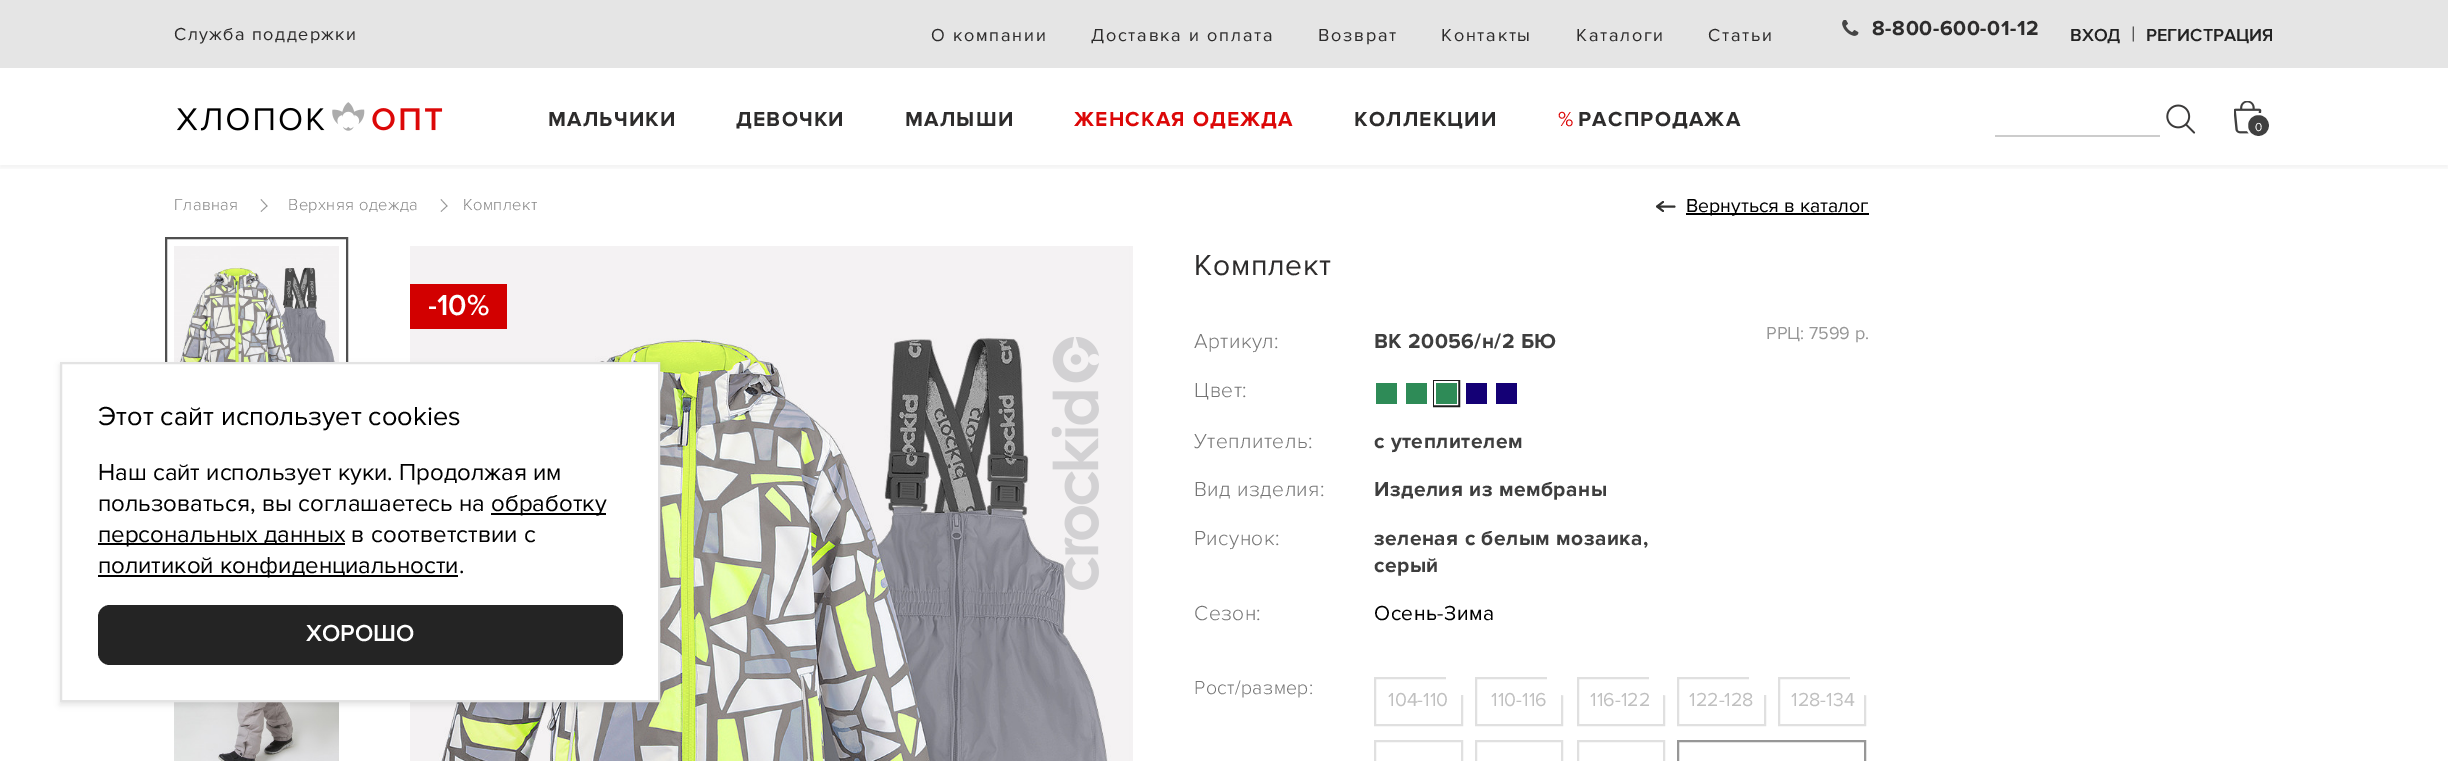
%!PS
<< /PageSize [2448 761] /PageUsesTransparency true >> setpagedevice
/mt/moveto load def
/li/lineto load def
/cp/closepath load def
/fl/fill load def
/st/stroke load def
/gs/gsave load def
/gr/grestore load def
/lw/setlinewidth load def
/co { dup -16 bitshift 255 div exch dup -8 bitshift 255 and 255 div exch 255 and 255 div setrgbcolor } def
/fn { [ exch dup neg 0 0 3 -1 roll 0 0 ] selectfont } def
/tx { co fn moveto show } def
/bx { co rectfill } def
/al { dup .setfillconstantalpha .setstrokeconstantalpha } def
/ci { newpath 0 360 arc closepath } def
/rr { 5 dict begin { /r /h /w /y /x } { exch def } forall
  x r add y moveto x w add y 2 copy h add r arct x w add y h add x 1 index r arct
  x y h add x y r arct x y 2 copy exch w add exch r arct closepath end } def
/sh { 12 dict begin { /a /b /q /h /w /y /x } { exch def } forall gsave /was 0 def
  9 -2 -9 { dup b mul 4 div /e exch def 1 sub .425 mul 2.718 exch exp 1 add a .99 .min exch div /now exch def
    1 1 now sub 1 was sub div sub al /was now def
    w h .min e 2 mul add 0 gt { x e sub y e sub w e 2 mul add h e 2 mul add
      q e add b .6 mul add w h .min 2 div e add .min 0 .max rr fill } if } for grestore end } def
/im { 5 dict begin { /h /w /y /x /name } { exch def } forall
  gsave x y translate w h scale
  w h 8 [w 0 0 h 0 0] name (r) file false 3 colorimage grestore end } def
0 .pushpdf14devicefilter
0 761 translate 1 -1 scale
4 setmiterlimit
0 0 2448 761 16#FFFFFF bx
gs
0 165 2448 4 rectclip
16#000000 co
0 3 2448 165 0 3 .05 sh
gr
0 0 2448 68 16#E5E5E5 bx
(media/1.raw) 1842 20 17 16 im
(media/2.raw) 177 102 266 29 im
(media/3.raw) 2166 104 30 30 im
1995 135 165 2 16#CCCCCC bx
(media/4.raw) 2234 101 28 33 im
16#404040 co
2247 114 23 23 11 rr gs fl gr
16#FFFFFF co
2 lw
st
16#979797 co
.8 lw
261 199.5 mt 267 206 li 261 211.5 li st
441 199.5 mt 447 206 li 441 211.5 li st
16#323231 co
1.9 lw
1 setlinecap
1 setlinejoin
1657.5 206.5 mt 1674.5 206.5 li 1663 202 mt 1657 206.5 li 1663 211 li st
1686 213 183 2 16#000000 bx
(media/5.raw) 174 246 165 116 im
16#4F4F4F co
2 lw
0 setlinecap
0 setlinejoin
166 238 181 271 rectstroke
(media/6.raw) 174 702 165 59 im
(media/7.raw) 410 246 723 515 im
410 284 97 45 16#D20000 bx
(media/8.raw) 1051 337 48 253 im
1376 383 21 21 16#2E8B57 bx
1406 383 21 21 16#2E8B57 bx
16#1D1D1D co
3 lw
1434.5 381.5 24 24 rectstroke
16#FFFFFF co
2 lw
1435 382 22 22 rectstroke
1436 383 21 21 16#2E8B57 bx
1466 383 21 21 16#140075 bx
1496 383 21 21 16#140075 bx
16#E0E0E0 co
1375 678 87 47 rectstroke
1375 741 87 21 rectstroke
1476 741 86 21 rectstroke
1578 741 86 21 rectstroke
16#979797 co
1678 741 187 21 rectstroke
16#000000 co
60 365 600 340 0 3 .1 sh
16#FFFFFF co
61 363 mt 659 363 li 659 701 li 61 701 li cp gs fl gr
16#E3E3E3 co
st
491 513 115 2 16#000000 bx
98 543 247 2 16#000000 bx
98 575 360 2 16#000000 bx
16#242424 co
98 605 525 60 12 rr fl
/ProximaNova-Regular 18 fn
16#2D2C2C co
174 40 mt 1.4 0 (Служба поддержки) ashow
931 41 mt 1.75 0 (О компании) ashow
1091 41 mt 1.75 0 (Доставка и оплата) ashow
1318 41 mt 1.75 0 (Возврат) ashow
1441 41 mt 1.75 0 (Контакты) ashow
1576 41 mt 1.75 0 (Каталоги) ashow
1708 41 mt 1.75 0 (Статьи) ashow
/ProximaNova-Bold 21 fn
1872 35 mt .6 0 (8-800-600-01-12) ashow
(ВХОД) 2070 41 /ProximaNova-SemiBold 18 16#222222 tx
(|) 2131 41 /ProximaNova-Regular 21 16#222222 tx
(РЕГИСТРАЦИЯ) 2146 41 /ProximaNova-SemiBold 18 16#222222 tx
/ProximaNova-Bold 21 fn
16#2D2C2C co
548 126 mt 1.25 0 (МАЛЬЧИКИ) ashow
736 126 mt 1.25 0 (ДЕВОЧКИ) ashow
905 126 mt 1.25 0 (МАЛЫШИ) ashow
16#DC0808 co
1074 126 mt 1.25 0 (ЖЕНСКАЯ ОДЕЖДА) ashow
16#2D2C2C co
1354 126 mt 1.25 0 (КОЛЛЕКЦИИ) ashow
(%) 1558 126 /ProximaNova-Regular 21 16#DC0808 tx
/ProximaNova-Bold 21 fn
16#2D2C2C co
1578 126 mt 1.25 0 (РАСПРОДАЖА) ashow
/ProximaNova-Regular 12 fn
16#FFFFFF co
2255 131 mt .4 0 (0) ashow
/ProximaNova-Light 16.5 fn
16#858585 co
174 210 mt .4 0 (Главная) ashow
288 210 mt .4 0 (Верхняя одежда) ashow
463 210 mt .4 0 (Комплект) ashow
(Вернуться в каталог) 1686 212 /ProximaNova-Regular 19.5 16#000000 tx
(-10%) 428 315 /ProximaNova-SemiBold 30 16#FFFFFF tx
/ProximaNova-Regular 30 fn
16#2D2C2C co
1194 275 mt .75 0 (Комплект) ashow
/ProximaNova-Light 21 fn
16#757575 co
1194 348 mt .45 0 (Артикул:) ashow
/ProximaNova-Bold 21 fn
16#3E3E3E co
1374 348 mt .45 0 (ВК 20056/н/2 БЮ) ashow
/ProximaNova-Light 21 fn
16#757575 co
1194 397 mt .45 0 (Цвет:) ashow
1194 448 mt .45 0 (Утеплитель:) ashow
/ProximaNova-Bold 21 fn
16#3E3E3E co
1374 448 mt .45 0 (с утеплителем) ashow
/ProximaNova-Light 21 fn
16#757575 co
1194 496 mt .45 0 (Вид изделия:) ashow
/ProximaNova-Bold 21 fn
16#3E3E3E co
1374 496 mt .45 0 (Изделия из мембраны) ashow
/ProximaNova-Light 21 fn
16#757575 co
1194 545 mt .45 0 (Рисунок:) ashow
/ProximaNova-Bold 21 fn
16#3E3E3E co
1374 545 mt .45 0 (зеленая с белым мозаика,) ashow
1374 572 mt .45 0 (серый) ashow
/ProximaNova-Light 21 fn
16#757575 co
1194 620 mt .45 0 (Сезон:) ashow
/ProximaNova-Regular 21 fn
16#000000 co
1374 620 mt .45 0 (Осень-Зима) ashow
(РРЦ: 7599 р.) 1766 339 /ProximaNova-Regular 18 16#979797 tx
/ProximaNova-Light 19.5 fn
16#757575 co
1194 694 mt .4 0 (Рост/размер:) ashow
(104-110) 1388 706 /ProximaNova-Regular 19.5 16#C0C0C0 tx
16#FFFFFF co
1462.5 678.5 16.5 ci fl
16#E0E0E0 co
1476 678 86 47 rectstroke
16#FFFFFF co
1563.5 678.5 15.5 ci gs fl gr
st
(110-116) 1491 706 /ProximaNova-Regular 19.5 16#C0C0C0 tx
16#E0E0E0 co
1578 678 86 47 rectstroke
16#FFFFFF co
1665.5 678.5 15.5 ci gs fl gr
st
(116-122) 1590 706 /ProximaNova-Regular 19.5 16#C0C0C0 tx
16#E0E0E0 co
1678 678 87 47 rectstroke
(122-128) 1689 706 /ProximaNova-Regular 19.5 16#C0C0C0 tx
16#FFFFFF co
1765.5 678.5 16.5 ci fl
16#E0E0E0 co
1779 678 86 47 rectstroke
(128-134) 1791 706 /ProximaNova-Regular 19.5 16#C0C0C0 tx
16#FFFFFF co
1866.5 678.5 15.5 ci gs fl gr
st
(Этот сайт использует cookies) 98 425 /ProximaNova-Regular 27 16#000000 tx
(Наш сайт использует куки. Продолжая им) 98 480 /ProximaNova-Regular 24 16#000000 tx
(пользоваться, вы соглашаетесь на) 98 511 /ProximaNova-Regular 24 16#000000 tx
(обработку) 491 511 /ProximaNova-Regular 24 16#000000 tx
(персональных данных в соответствии с) 98 542 /ProximaNova-Regular 24 16#000000 tx
(политикой конфиденциальности.) 98 573 /ProximaNova-Regular 24 16#000000 tx
(ХОРОШО) 306 641 /ProximaNova-SemiBold 24 16#FFFFFF tx
.poppdf14devicefilter showpage
